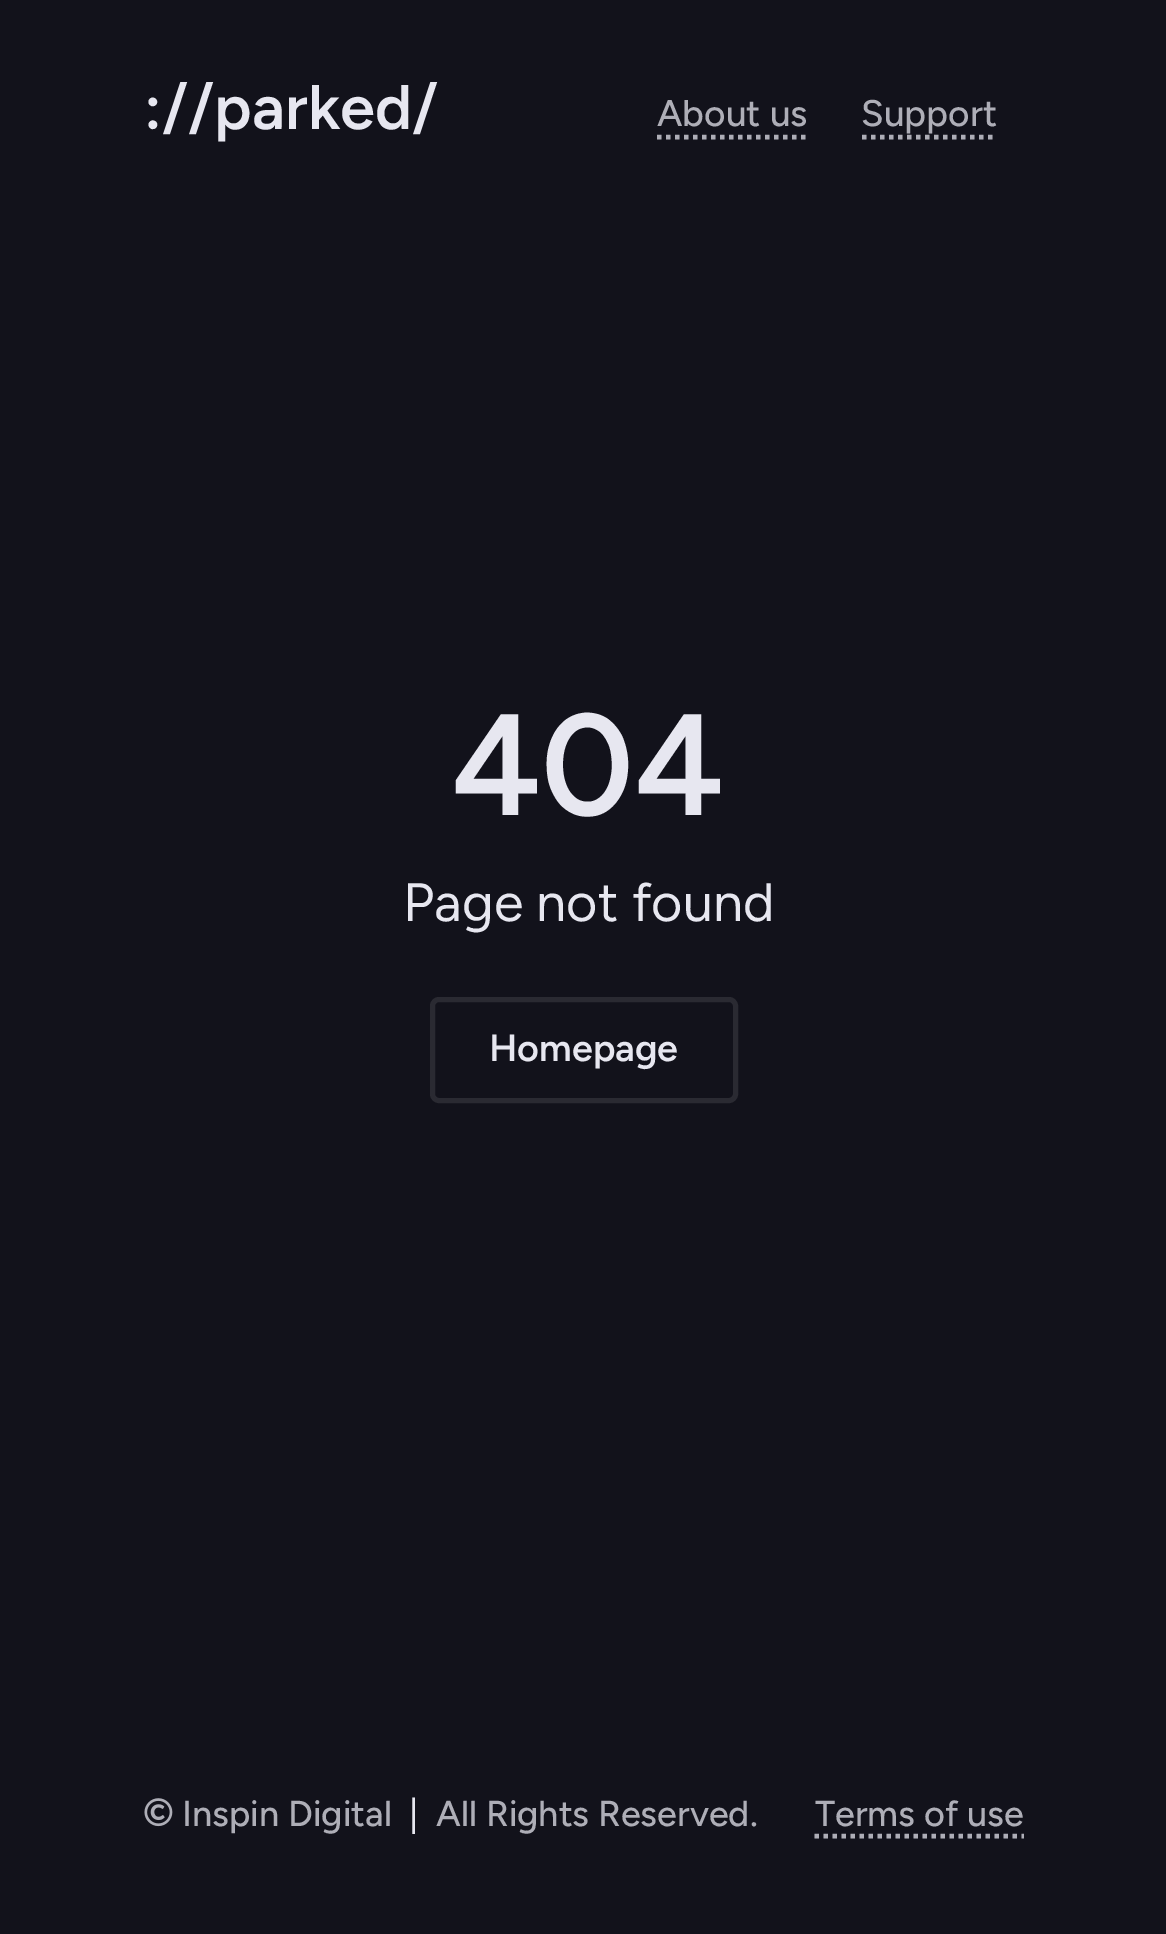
%!PS
<< /PageSize [1166 1934] >> setpagedevice
/mt/moveto load def
/li/lineto load def
/st/stroke load def
/lw/setlinewidth load def
/co { dup -16 bitshift 255 div exch dup -8 bitshift 255 and 255 div exch 255 and 255 div setrgbcolor } def
/fn { [ exch dup neg 0 0 3 -1 roll 0 0 ] selectfont } def
/tx { co fn moveto show } def
/bx { co rectfill } def
/rr { 5 dict begin { /r /h /w /y /x } { exch def } forall
  x r add y moveto x w add y 2 copy h add r arct x w add y h add x 1 index r arct
  x y h add x y r arct x y 2 copy exch w add exch r arct closepath end } def
/im { 5 dict begin { /h /w /y /x /name } { exch def } forall
  gsave x y translate w h scale
  w h 8 [w 0 0 h 0 0] name (r) file false 3 colorimage grestore end } def
0 1934 translate 1 -1 scale
4 setmiterlimit
0 0 1166 1934 16#12121B bx
16#AEAEB7 co
4.5 lw
[4.5 4.5] 0 setdash
657 137 mt 808 137 li st
862 137 mt 997 137 li st
16#2A2A32 co
5 lw
[] 0 setdash
432.5 999.5 303 101 6.5 rr st
(media/1.raw) 144 1798 29 29 im
16#AEAEB7 co
4.5 lw
[4.5 4.5] 0 setdash
814.5 1836 mt 1024 1836 li st
(://parked/) 144 129 /Figtree-SemiBold 63 16#E7E7F0 tx
(About us) 657 126 /Figtree-Light 37 16#AEAEB7 tx
(Support) 861 126 /Figtree-Light 37 16#AEAEB7 tx
(404) 451 815 /Figtree-SemiBold 144 16#E7E7F0 tx
(Page not found) 403 921 /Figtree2-Light 54 16#E7E7F0 tx
(Homepage) 489 1061 /Figtree-SemiBold 37.75 16#E7E7F0 tx
(Inspin Digital) 182 1826 /Figtree-Light 36 16#AEAEB7 tx
(|) 409 1826 /Figtree2-Light 36 16#E7E7F0 tx
(All Rights Reserved.) 436 1826 /Figtree-Light 36 16#AEAEB7 tx
(Terms of use) 815 1826 /Figtree-Light 36 16#AEAEB7 tx
showpage
